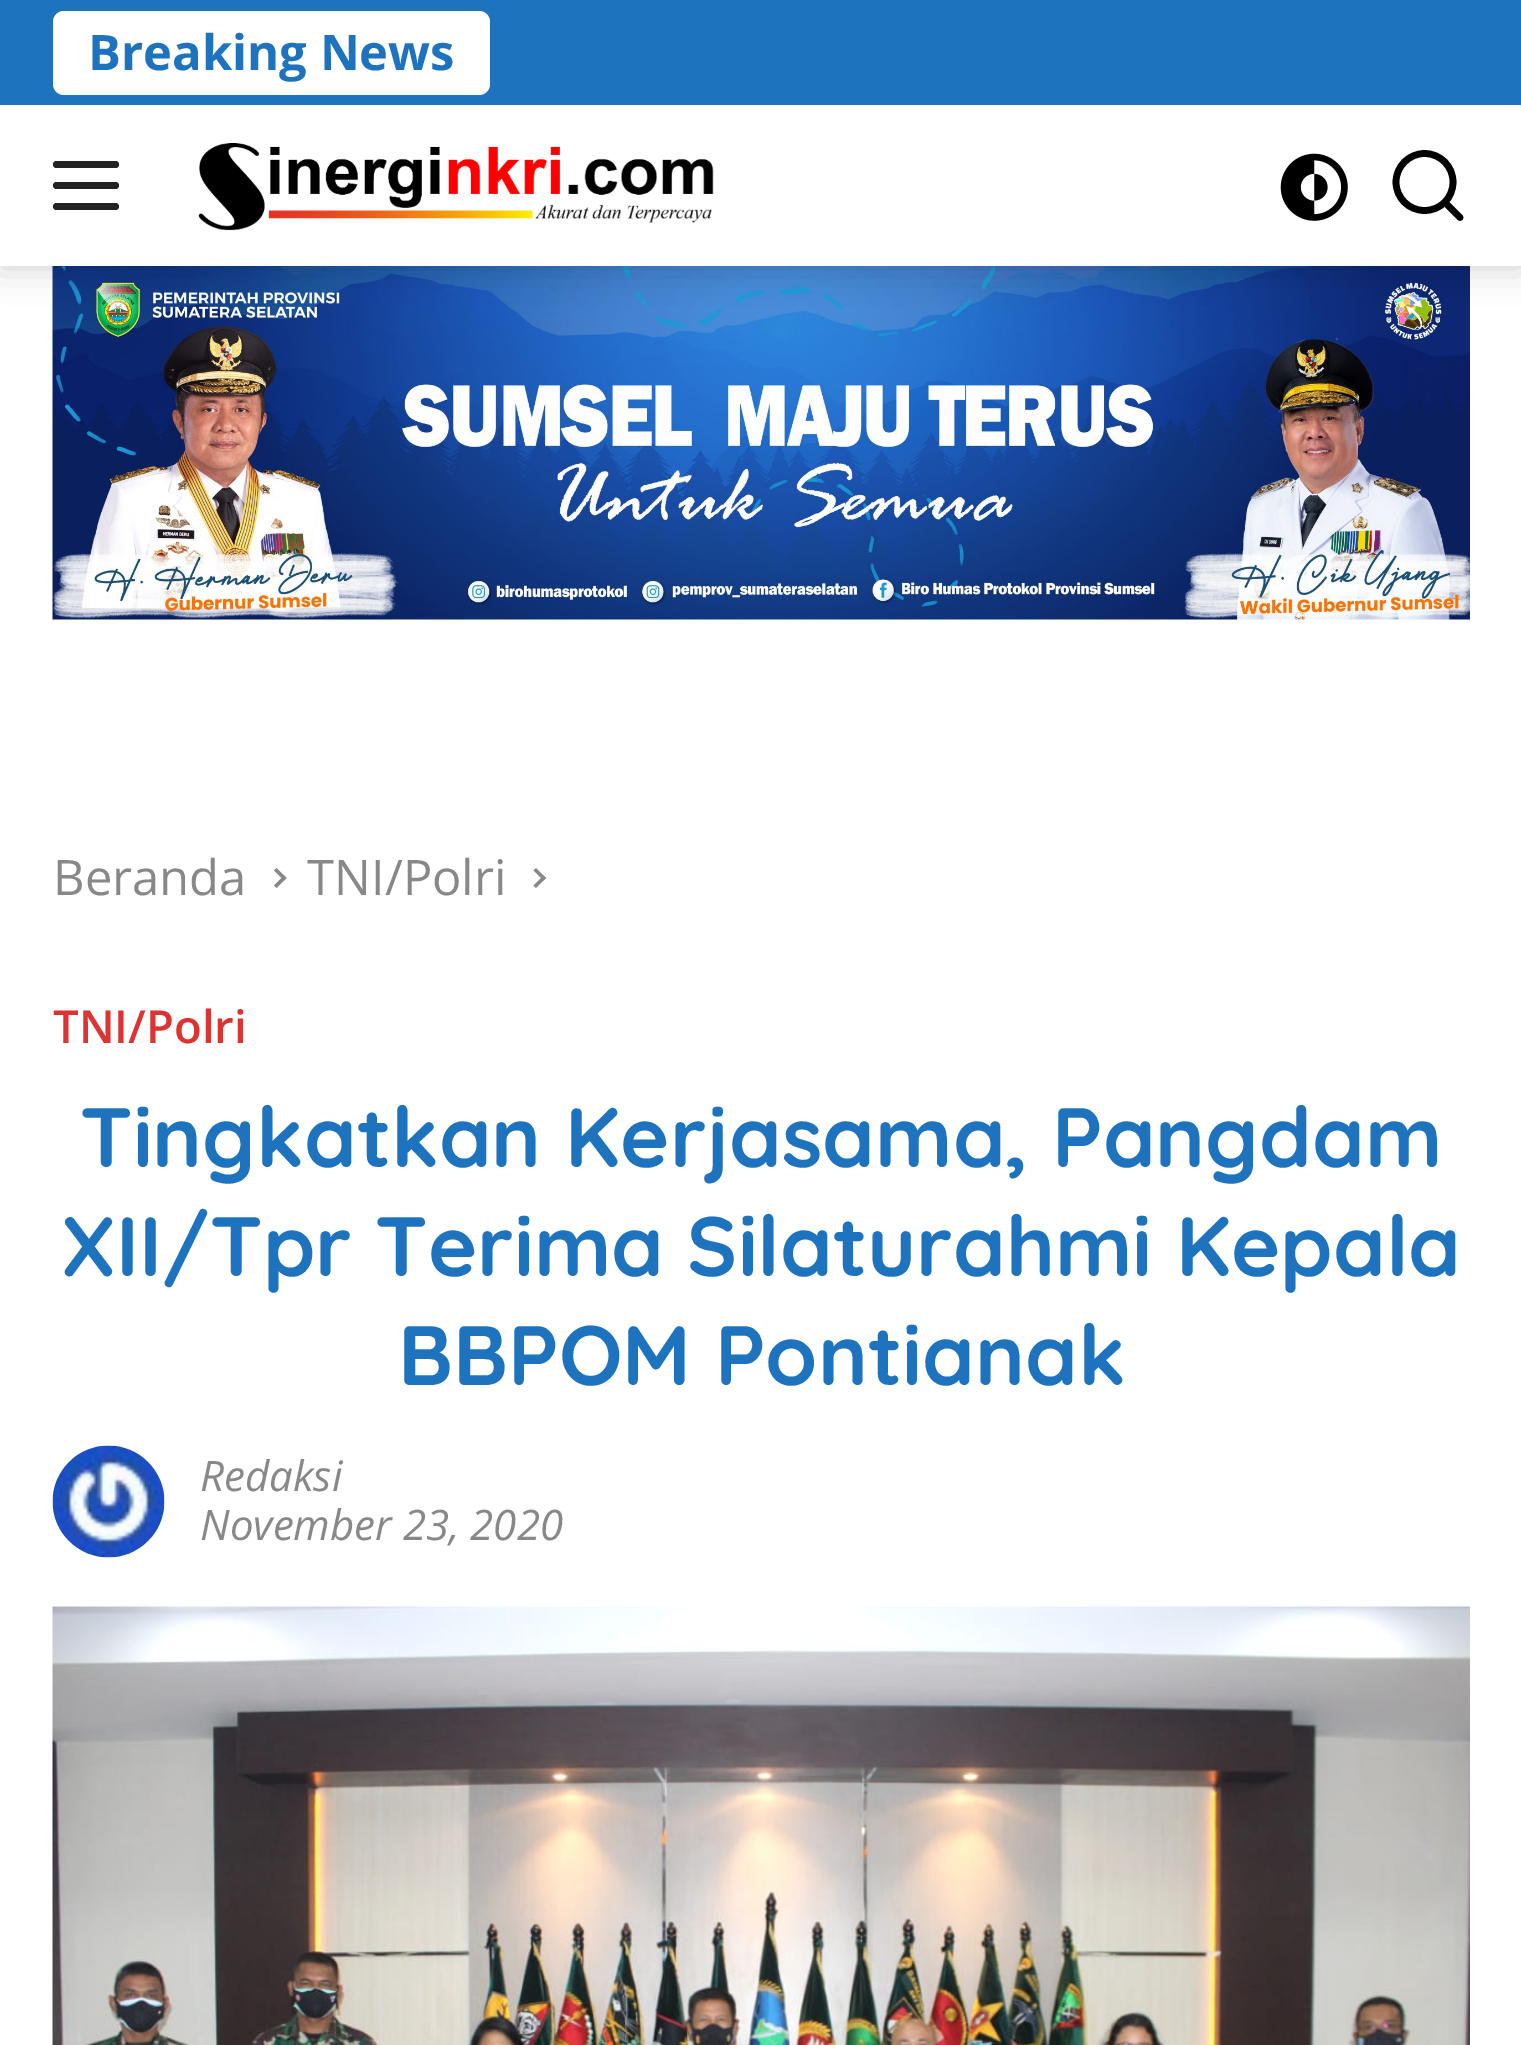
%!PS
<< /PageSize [1521 2045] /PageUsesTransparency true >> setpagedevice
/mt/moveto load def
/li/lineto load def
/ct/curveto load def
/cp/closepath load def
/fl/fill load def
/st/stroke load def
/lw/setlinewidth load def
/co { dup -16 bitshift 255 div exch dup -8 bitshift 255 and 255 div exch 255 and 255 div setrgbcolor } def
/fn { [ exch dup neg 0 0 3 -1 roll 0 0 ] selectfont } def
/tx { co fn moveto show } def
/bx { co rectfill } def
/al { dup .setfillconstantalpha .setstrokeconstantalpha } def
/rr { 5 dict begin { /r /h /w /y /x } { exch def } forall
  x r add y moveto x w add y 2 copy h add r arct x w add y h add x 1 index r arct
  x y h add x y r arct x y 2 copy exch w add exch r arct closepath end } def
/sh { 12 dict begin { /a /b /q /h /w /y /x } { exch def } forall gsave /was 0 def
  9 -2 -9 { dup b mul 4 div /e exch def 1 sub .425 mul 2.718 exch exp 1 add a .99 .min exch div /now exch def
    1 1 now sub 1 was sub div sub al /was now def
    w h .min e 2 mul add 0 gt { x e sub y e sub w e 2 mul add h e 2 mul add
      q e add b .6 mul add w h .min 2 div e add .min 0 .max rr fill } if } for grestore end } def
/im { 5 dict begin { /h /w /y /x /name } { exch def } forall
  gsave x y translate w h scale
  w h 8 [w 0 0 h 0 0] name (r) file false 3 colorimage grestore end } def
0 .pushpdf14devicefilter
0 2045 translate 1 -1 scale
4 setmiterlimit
0 0 1521 2045 16#FFFFFF bx
(media/3.raw) 52 266 1418 354 im
16#000000 co
0 0 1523 266 0 17.5 .2 sh
0 105 1521 161 16#FFFFFF bx
0 0 1521 105 16#1E73BE bx
16#FFFFFF co
53 11 437 84 11 rr fl
16#222222 co
53 161 66 7 3.5 rr fl
53 182 66 7 3.5 rr fl
53 203 66 7 3.5 rr fl
(media/1.raw) 198 143 516 88 im
(media/2.raw) 1280 153 68 68 im
16#000000 co
6.7 lw
1 setlinecap
1460 217.5 mt 1445 202.5 li 1453 182 mt 1453 198 1440.5 210.5 1424.5 210.5 ct 1409 210.5 1396 198 1396 182 ct 1396 166.5 1409 153.5 1424.5 153.5 ct 1440.5 153.5 1453 166.5 1453 182 ct cp st
16#888888 co
274 870.5 mt 276.5 868 li 286.5 878 li 284 880.5 li cp fl
274 885.5 mt 284 875.5 li 286.5 878 li 276.5 888 li cp fl
533.5 870.5 mt 536 868 li 546 878 li 543.5 880.5 li cp fl
533.5 885.5 mt 543.5 875.5 li 546 878 li 536 888 li cp fl
(media/4.raw) 52 1445 113 113 im
(media/5.raw) 52 1606 1418 439 im
(Breaking News) 88 70 /OpenSans-Bold 49 16#1E73BE tx
(Beranda) 53 895 /OpenSans-Regular 49 16#888888 tx
(TNI/Polri) 307 895 /OpenSans-Regular 49 16#888888 tx
(TNI/Polri) 53 1043 /OpenSans-SemiBold 45.5 16#DD3333 tx
(Tingkatkan Kerjasama, Pangdam) 80 1167 /Quicksand-Bold 84 16#1E73BE tx
(XII/Tpr Terima Silaturahmi Kepala) 61 1276 /Quicksand-Bold 84 16#1E73BE tx
(BBPOM Pontianak) 398 1385 /Quicksand-Bold 84 16#1E73BE tx
(Redaksi) 200 1491 /OpenSans-Italic 42 16#888888 tx
(November 23, 2020) 200 1540 /OpenSans-Italic 42 16#888888 tx
.poppdf14devicefilter showpage
